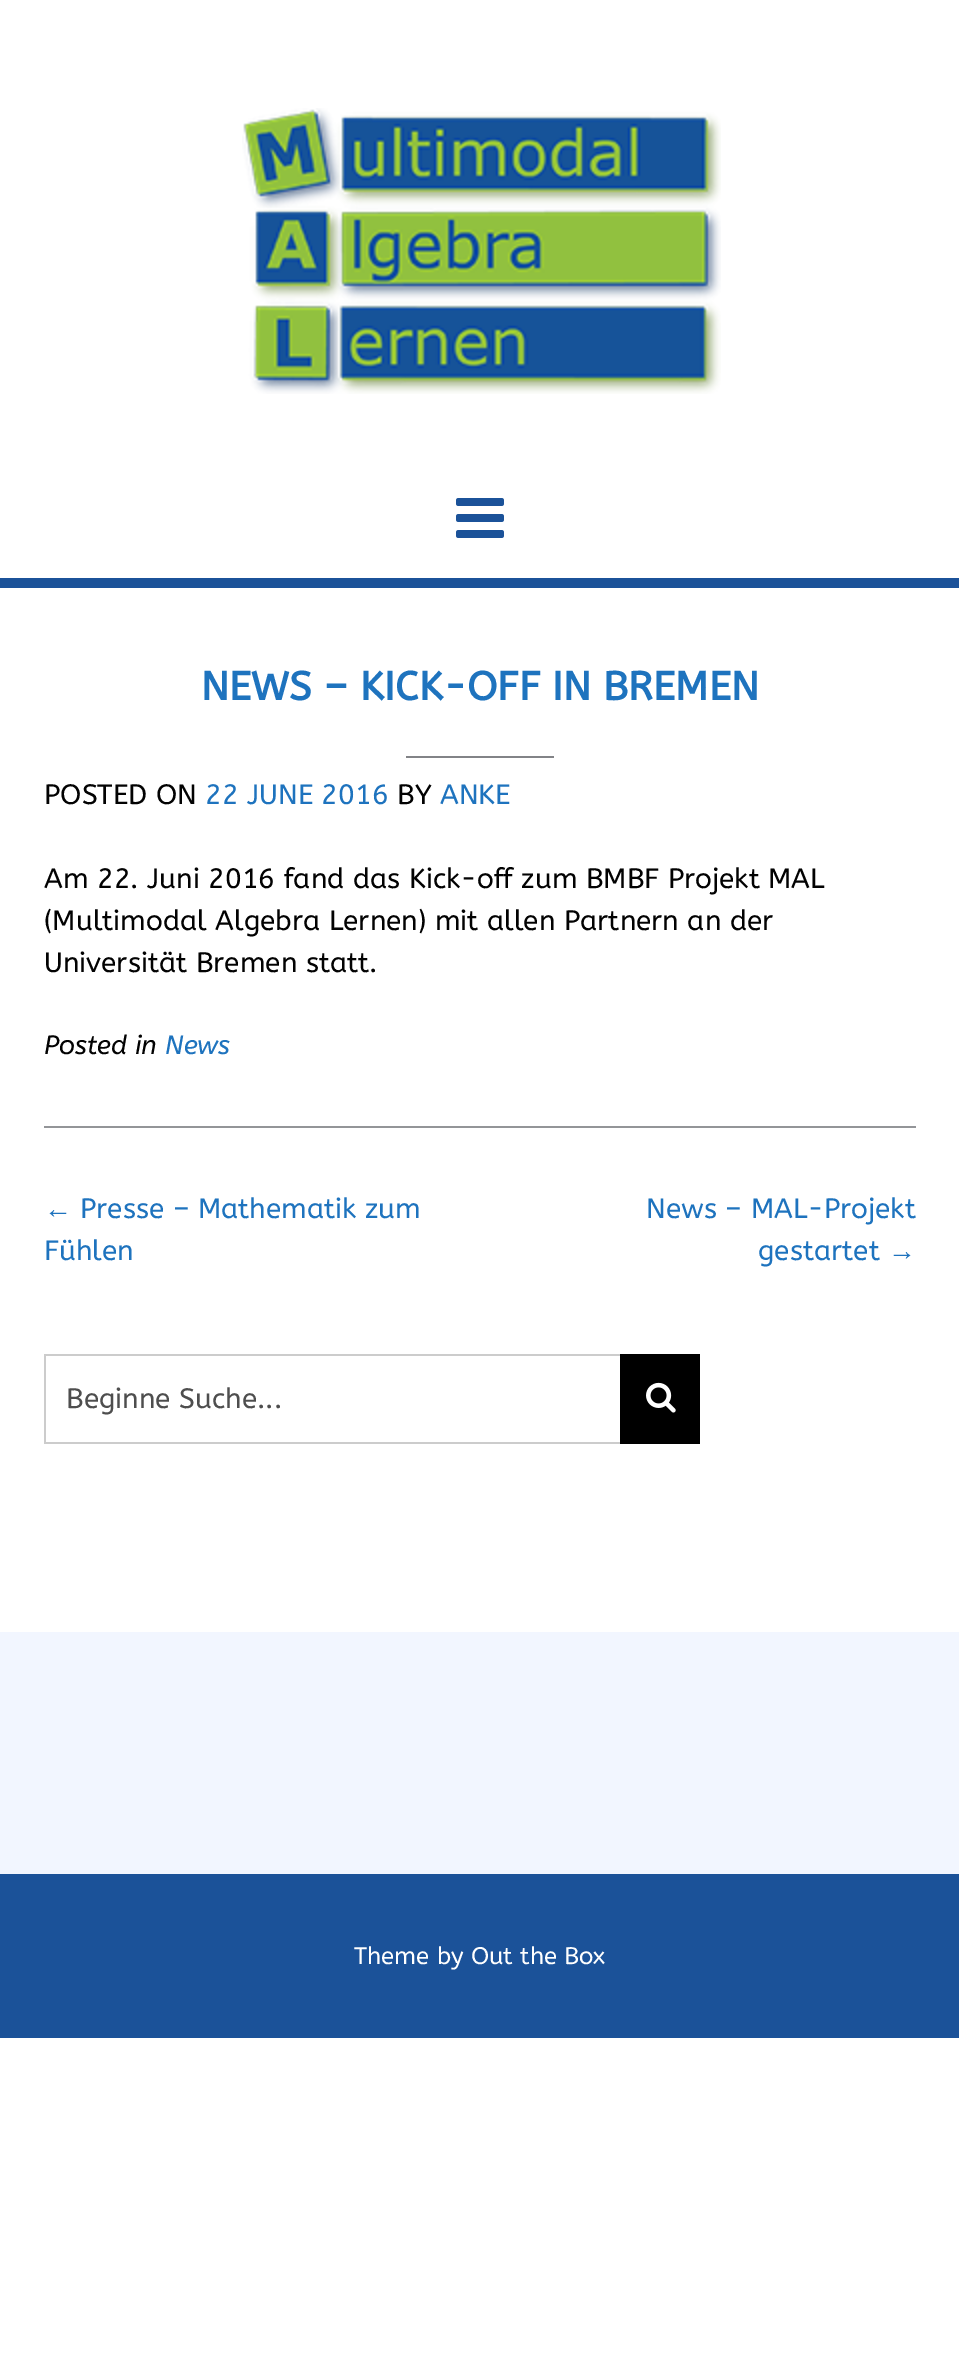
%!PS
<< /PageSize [959 2376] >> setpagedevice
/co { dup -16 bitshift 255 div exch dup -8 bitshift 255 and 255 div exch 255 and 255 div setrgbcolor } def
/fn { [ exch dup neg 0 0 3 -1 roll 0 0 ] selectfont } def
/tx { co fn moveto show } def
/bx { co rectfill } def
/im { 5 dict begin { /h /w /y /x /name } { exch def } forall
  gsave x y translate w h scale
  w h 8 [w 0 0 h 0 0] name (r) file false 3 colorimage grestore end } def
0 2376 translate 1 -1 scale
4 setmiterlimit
0 0 959 2376 16#FFFFFF bx
(media/1.raw) 242 108 479 286 im
0 578 959 10 16#1B5299 bx
(media/2.raw) 456 498 48 40 im
44 1126 872 2 16#939598 bx
406 756 148 2 16#828387 bx
44 1354 576 2 16#CCCCCC bx
44 1442 576 2 16#CCCCCC bx
44 1354 2 90 16#CCCCCC bx
620 1354 80 90 16#000000 bx
(media/3.raw) 646 1382 30 31 im
0 1632 959 242 16#F2F6FF bx
0 1874 959 164 16#1B5299 bx
(NEWS – KICK-OFF IN BREMEN) 201 700 /ABeeZee-Bold 40 16#1E73BE tx
(POSTED ON) 44 804 /ABeeZee-Regular 28 16#020202 tx
(22 JUNE 2016) 205 804 /ABeeZee-Regular 28 16#1E73BE tx
(BY) 397 804 /ABeeZee-Regular 28 16#020202 tx
(ANKE) 440 804 /ABeeZee-Regular 28 16#1E73BE tx
(Am 22. Juni 2016 fand das Kick-off zum BMBF Projekt MAL) 44 888 /ABeeZee-Regular 28 16#020202 tx
(\(Multimodal Algebra Lernen\) mit allen Partnern an der) 44 930 /ABeeZee-Regular 28 16#020202 tx
(Universität Bremen statt.) 44 972 /ABeeZee-Regular 28 16#020202 tx
(Posted in) 44 1054 /ABeeZee-Italic 26.5 16#020202 tx
(News) 165 1054 /ABeeZee-Italic 26.5 16#1E73BE tx
(←) 44 1218 /LiberationSans-Regular 28 16#1E73BE tx
(Presse – Mathematik zum) 80 1218 /ABeeZee-Regular 28 16#1E73BE tx
(Fühlen) 44 1260 /ABeeZee-Regular 28 16#1E73BE tx
(News – MAL-Projekt) 646 1218 /ABeeZee-Regular 28 16#1E73BE tx
(gestartet) 758 1260 /ABeeZee-Regular 28 16#1E73BE tx
(→) 888 1260 /LiberationSans-Regular 28 16#1E73BE tx
(Beginne Suche...) 66 1408 /ABeeZee-Regular 28 16#4E4E4E tx
(Theme by Out the Box) 354 1964 /ABeeZee-Regular 24 16#FFFFFF tx
showpage
